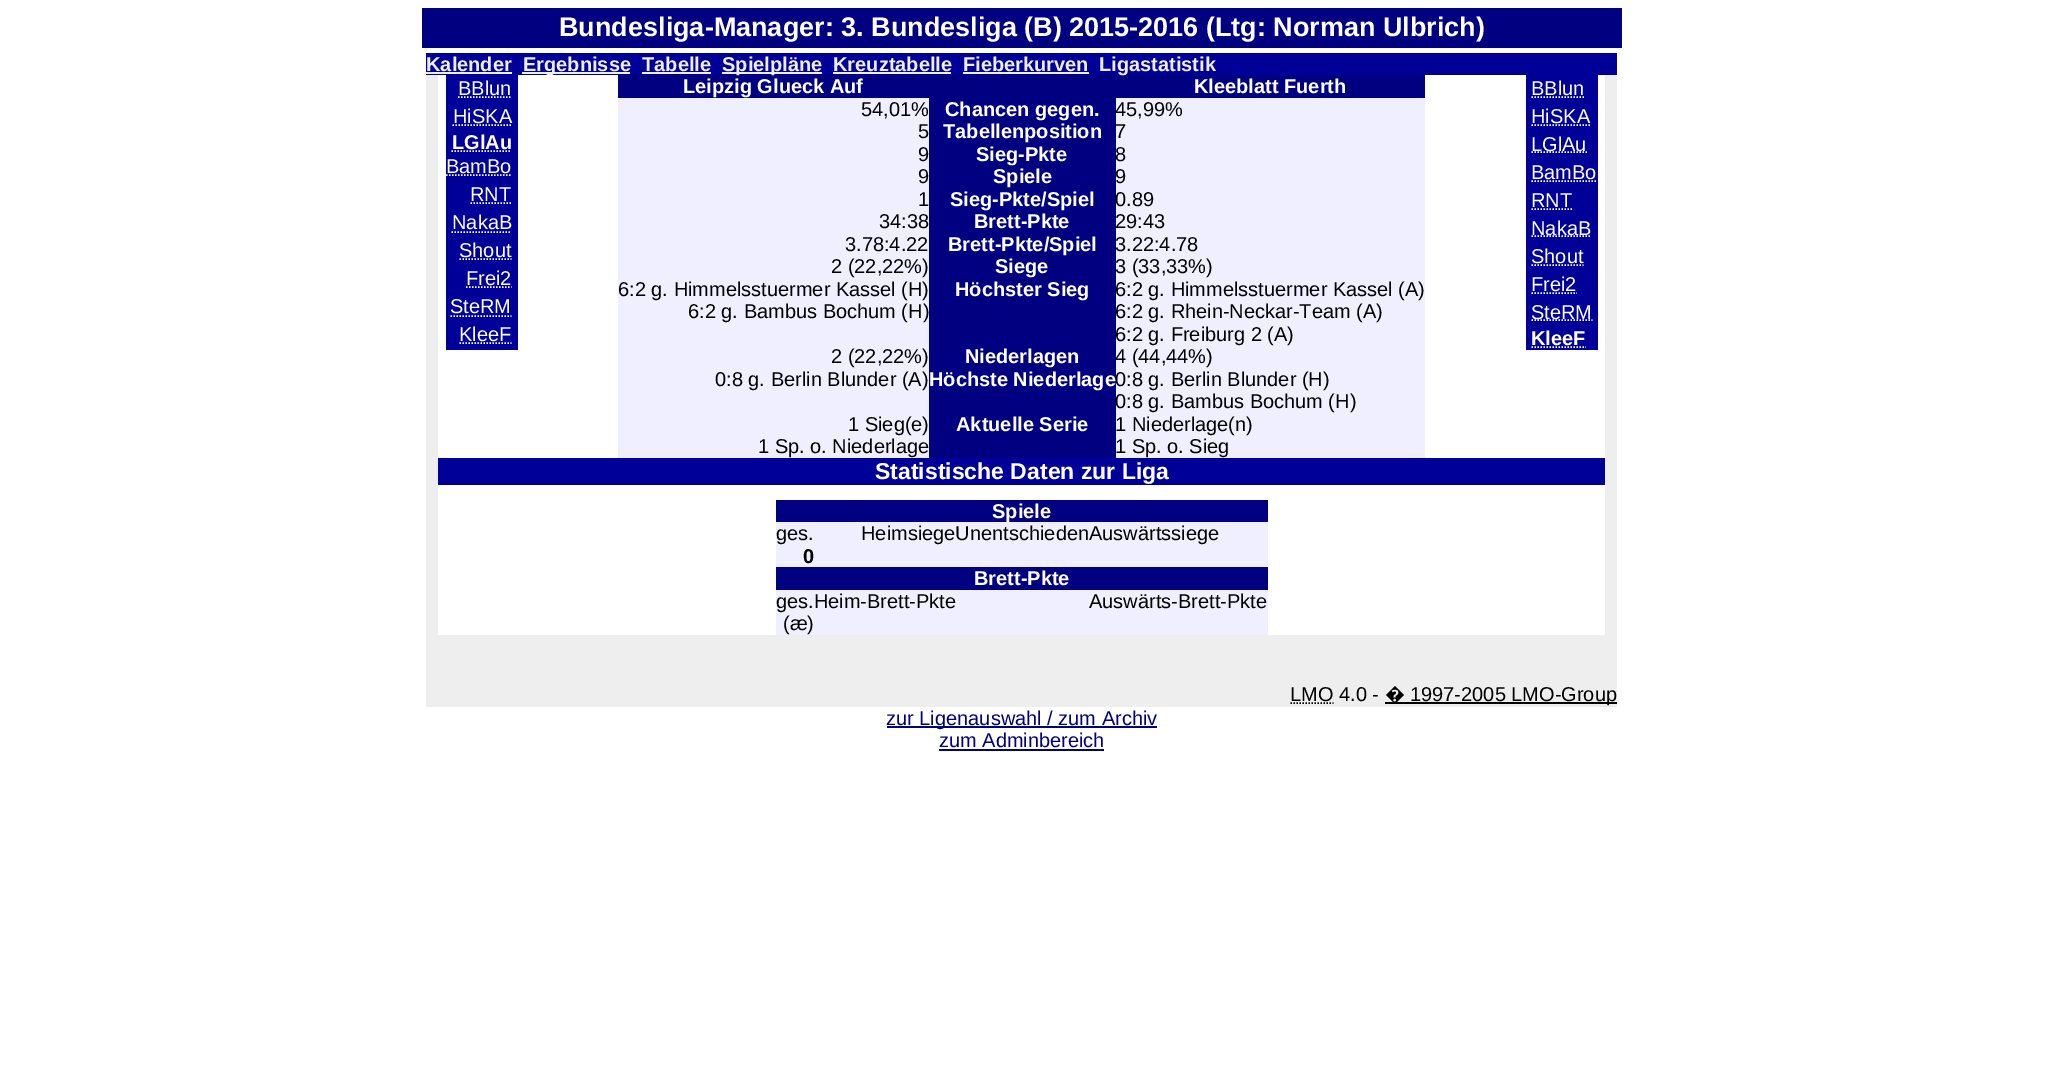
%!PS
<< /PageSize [2047 1084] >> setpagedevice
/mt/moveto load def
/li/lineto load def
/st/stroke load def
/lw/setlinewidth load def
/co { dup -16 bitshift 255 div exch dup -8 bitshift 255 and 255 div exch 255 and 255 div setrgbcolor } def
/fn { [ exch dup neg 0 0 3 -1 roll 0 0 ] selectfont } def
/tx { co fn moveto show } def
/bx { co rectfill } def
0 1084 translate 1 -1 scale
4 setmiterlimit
0 0 2047 1084 16#FFFFFF bx
422 8 1200 40 16#000080 bx
426 75 1191 632 16#EEEEEE bx
426 53 1191 22 16#000099 bx
426 72 86 2 16#EEEEEE bx
522 72 108 2 16#EEEEEE bx
642 72 69 2 16#EEEEEE bx
722 72 100 2 16#EEEEEE bx
833 72 118 2 16#EEEEEE bx
963 72 126 2 16#EEEEEE bx
438 75 1167 383 16#FFFFFF bx
446 75 72 275 16#000099 bx
16#FFFFFF co
1.5 lw
[1.5 1.5] 0 setdash
458 97 mt 511.5 97 li st
452.5 125 mt 511.5 125 li st
451.5 151 mt 511.5 151 li st
446 175 mt 511.5 175 li st
470.5 203 mt 511.5 203 li st
451.5 232 mt 511.5 232 li st
459.5 259 mt 511.5 259 li st
466 287 mt 511.5 287 li st
450.5 316 mt 511.5 316 li st
459.5 343 mt 511.5 343 li st
618 98 807 360 16#EFEFFF bx
618 75 807 23 16#000080 bx
929 98 187 360 16#000080 bx
1526 75 72 275 16#000099 bx
16#FFFFFF co
1531.5 97 mt 1584.5 97 li st
1531.5 125 mt 1590 125 li st
1531.5 152 mt 1587 152 li st
1531.5 181 mt 1597 181 li st
1531.5 209 mt 1572.5 209 li st
1531.5 236 mt 1591.5 236 li st
1531.5 265 mt 1583.5 265 li st
1531.5 293 mt 1577 293 li st
1531.5 320 mt 1592.5 320 li st
1531.5 347 mt 1586 347 li st
438 485 1167 150 16#FFFFFF bx
438 458 1167 27 16#000099 bx
776 522 492 113 16#EFEFFF bx
776 500 492 22 16#000080 bx
776 567 492 23 16#000080 bx
16#000000 co
1290.5 703 mt 1333.5 703 li st
1385 702 232 2 16#000000 bx
887 726 270 2 16#000080 bx
939 749 165 2 16#000080 bx
(Bundesliga-Manager: 3. Bundesliga \(B\) 2015-2016 \(Ltg: Norman Ulbrich\)) 559 36 /LiberationSans-Bold 27 16#FFFFFF tx
(Kalender) 426 71 /LiberationSans-Bold 20 16#EEEEEE tx
(Ergebnisse) 523 71 /LiberationSans-Bold 20 16#EEEEEE tx
(Tabelle) 642 71 /LiberationSans-Bold 20 16#EEEEEE tx
(Spielpläne) 722 71 /LiberationSans-Bold 20 16#EEEEEE tx
(Kreuztabelle) 833 71 /LiberationSans-Bold 20 16#EEEEEE tx
(Fieberkurven) 963 71 /LiberationSans-Bold 20 16#EEEEEE tx
(Ligastatistik) 1099 71 /LiberationSans-Bold 20 16#EEEEEE tx
(BBlun) 458 95 /LiberationSans-Regular 20 16#FFFFFF tx
(HiSKA) 453 123 /LiberationSans-Regular 20 16#FFFFFF tx
(LGlAu) 452 149 /LiberationSans-Bold 20 16#FFFFFF tx
(BamBo) 446 173 /LiberationSans-Regular 20 16#FFFFFF tx
(RNT) 470 201 /LiberationSans-Regular 20 16#FFFFFF tx
(NakaB) 452 229 /LiberationSans-Regular 20 16#FFFFFF tx
(Shout) 459 257 /LiberationSans-Regular 20 16#FFFFFF tx
(Frei2) 466 285 /LiberationSans-Regular 20 16#FFFFFF tx
(SteRM) 450 313 /LiberationSans-Regular 20 16#FFFFFF tx
(KleeF) 459 341 /LiberationSans-Regular 20 16#FFFFFF tx
(Leipzig Glueck Auf) 683 93 /LiberationSans-Bold 20 16#FFFFFF tx
(Kleeblatt Fuerth) 1194 93 /LiberationSans-Bold 20 16#FFFFFF tx
(54,01%) 861 116 /LiberationSans-Regular 20 16#000000 tx
(Chancen gegen.) 945 116 /LiberationSans-Bold 20 16#FFFFFF tx
(45,99%) 1115 116 /LiberationSans-Regular 20 16#000000 tx
(5) 918 138 /LiberationSans-Regular 20 16#000000 tx
(Tabellenposition) 943 138 /LiberationSans-Bold 20 16#FFFFFF tx
(7) 1115 138 /LiberationSans-Regular 20 16#000000 tx
(9) 918 161 /LiberationSans-Regular 20 16#000000 tx
(Sieg-Pkte) 976 161 /LiberationSans-Bold 20 16#FFFFFF tx
(8) 1115 161 /LiberationSans-Regular 20 16#000000 tx
(9) 918 183 /LiberationSans-Regular 20 16#000000 tx
(Spiele) 993 183 /LiberationSans-Bold 20 16#FFFFFF tx
(9) 1115 183 /LiberationSans-Regular 20 16#000000 tx
(1) 918 206 /LiberationSans-Regular 20 16#000000 tx
(Sieg-Pkte/Spiel) 950 206 /LiberationSans-Bold 20 16#FFFFFF tx
(0.89) 1115 206 /LiberationSans-Regular 20 16#000000 tx
(34:38) 879 228 /LiberationSans-Regular 20 16#000000 tx
(Brett-Pkte) 974 228 /LiberationSans-Bold 20 16#FFFFFF tx
(29:43) 1115 228 /LiberationSans-Regular 20 16#000000 tx
(3.78:4.22) 845 251 /LiberationSans-Regular 20 16#000000 tx
(Brett-Pkte/Spiel) 948 251 /LiberationSans-Bold 20 16#FFFFFF tx
(3.22:4.78) 1115 251 /LiberationSans-Regular 20 16#000000 tx
(2 \(22,22%\)) 831 273 /LiberationSans-Regular 20 16#000000 tx
(Siege) 995 273 /LiberationSans-Bold 20 16#FFFFFF tx
(3 \(33,33%\)) 1115 273 /LiberationSans-Regular 20 16#000000 tx
(6:2 g. Himmelsstuermer Kassel \(H\)) 618 296 /LiberationSans-Regular 20 16#000000 tx
(6:2 g. Bambus Bochum \(H\)) 688 318 /LiberationSans-Regular 20 16#000000 tx
(Höchster Sieg) 955 296 /LiberationSans-Bold 20 16#FFFFFF tx
(6:2 g. Himmelsstuermer Kassel \(A\)) 1115 296 /LiberationSans-Regular 20 16#000000 tx
(6:2 g. Rhein-Neckar-Team \(A\)) 1115 318 /LiberationSans-Regular 20 16#000000 tx
(6:2 g. Freiburg 2 \(A\)) 1115 341 /LiberationSans-Regular 20 16#000000 tx
(2 \(22,22%\)) 831 363 /LiberationSans-Regular 20 16#000000 tx
(Niederlagen) 965 363 /LiberationSans-Bold 20 16#FFFFFF tx
(4 \(44,44%\)) 1115 363 /LiberationSans-Regular 20 16#000000 tx
(0:8 g. Berlin Blunder \(A\)) 715 386 /LiberationSans-Regular 20 16#000000 tx
(Höchste Niederlage) 929 386 /LiberationSans-Bold 20 16#FFFFFF tx
(0:8 g. Berlin Blunder \(H\)) 1115 386 /LiberationSans-Regular 20 16#000000 tx
(0:8 g. Bambus Bochum \(H\)) 1115 408 /LiberationSans-Regular 20 16#000000 tx
(1 Sieg\(e\)) 848 431 /LiberationSans-Regular 20 16#000000 tx
(1 Sp. o. Niederlage) 758 453 /LiberationSans-Regular 20 16#000000 tx
(Aktuelle Serie) 956 431 /LiberationSans-Bold 20 16#FFFFFF tx
(1 Niederlage\(n\)) 1115 431 /LiberationSans-Regular 20 16#000000 tx
(1 Sp. o. Sieg) 1115 453 /LiberationSans-Regular 20 16#000000 tx
(BBlun) 1531 95 /LiberationSans-Regular 20 16#FFFFFF tx
(HiSKA) 1531 123 /LiberationSans-Regular 20 16#FFFFFF tx
(LGlAu) 1531 151 /LiberationSans-Regular 20 16#FFFFFF tx
(BamBo) 1531 179 /LiberationSans-Regular 20 16#FFFFFF tx
(RNT) 1531 207 /LiberationSans-Regular 20 16#FFFFFF tx
(NakaB) 1531 235 /LiberationSans-Regular 20 16#FFFFFF tx
(Shout) 1531 263 /LiberationSans-Regular 20 16#FFFFFF tx
(Frei2) 1531 291 /LiberationSans-Regular 20 16#FFFFFF tx
(SteRM) 1531 319 /LiberationSans-Regular 20 16#FFFFFF tx
(KleeF) 1531 345 /LiberationSans-Bold 20 16#FFFFFF tx
(Statistische Daten zur Liga) 875 479 /LiberationSans-Bold 23 16#FFFFFF tx
(Spiele) 992 518 /LiberationSans-Bold 20 16#FFFFFF tx
(ges.) 776 540 /LiberationSans-Regular 20 16#000000 tx
(HeimsiegeUnentschiedenAuswärtssiege) 861 540 /LiberationSans-Regular 20 16#000000 tx
(0) 803 563 /LiberationSans-Bold 20 16#000000 tx
(Brett-Pkte) 974 585 /LiberationSans-Bold 20 16#FFFFFF tx
(ges.Heim-Brett-Pkte) 776 608 /LiberationSans-Regular 20 16#000000 tx
(Auswärts-Brett-Pkte) 1089 608 /LiberationSans-Regular 20 16#000000 tx
(\(æ\)) 783 630 /LiberationSans-Regular 20 16#000000 tx
(LMO 4.0 -) 1290 701 /LiberationSans-Regular 20 16#000000 tx
(�) 1385 701 /NotoSans-Regular 20 16#000000 tx
(1997-2005 LMO-Group) 1410 701 /LiberationSans-Regular 20 16#000000 tx
(zur Ligenauswahl / zum Archiv) 886 725 /LiberationSans-Regular 20 16#000080 tx
(zum Adminbereich) 939 747 /LiberationSans-Regular 20 16#000080 tx
showpage
